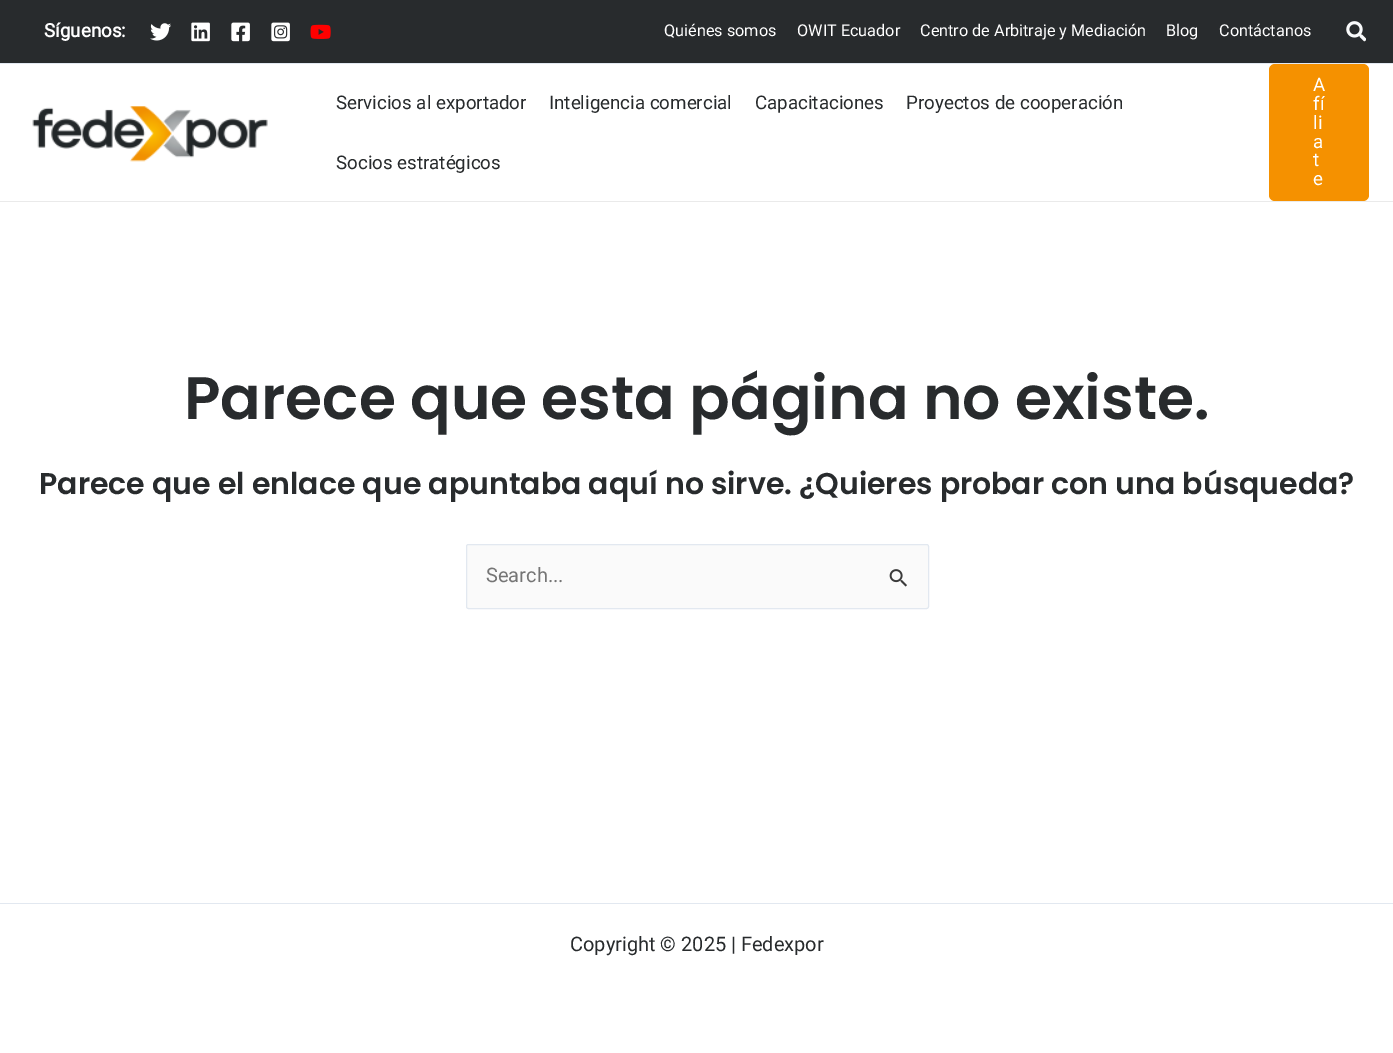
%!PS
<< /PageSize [1393 1053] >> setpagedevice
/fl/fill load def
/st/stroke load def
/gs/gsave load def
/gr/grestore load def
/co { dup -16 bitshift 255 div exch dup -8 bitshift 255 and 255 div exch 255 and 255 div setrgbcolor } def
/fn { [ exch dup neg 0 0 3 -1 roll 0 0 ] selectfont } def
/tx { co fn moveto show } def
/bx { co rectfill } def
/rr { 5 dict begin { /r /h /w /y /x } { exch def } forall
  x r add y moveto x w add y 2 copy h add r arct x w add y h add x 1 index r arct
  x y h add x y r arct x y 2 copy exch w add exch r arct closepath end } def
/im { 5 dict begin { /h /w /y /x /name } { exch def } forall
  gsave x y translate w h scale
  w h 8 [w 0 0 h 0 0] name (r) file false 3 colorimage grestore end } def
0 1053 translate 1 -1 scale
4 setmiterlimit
0 0 1393 1053 16#FFFFFF bx
0 0 1393 63 16#282B2D bx
0 63 1393 1 16#E2E8F0 bx
(media/1.raw) 150 23 21 18 im
(media/2.raw) 191 22 19 20 im
(media/3.raw) 231 22 19 20 im
(media/4.raw) 271 22 19 20 im
(media/5.raw) 310 24 21 15 im
(media/6.raw) 1346 21 20 21 im
0 201 1393 1 16#EAEAEA bx
(media/7.raw) 32 106 236 56 im
16#F59100 co
1269 64 100 137 6 rr fl
16#FAFAFA co
466.5 544.5 462 64 2 rr gs fl gr
16#E2E8F0 co
st
(media/8.raw) 889 569 18 18 im
0 903 1393 1 16#E2E8F0 bx
(Síguenos:) 44 37 /Roboto-Bold 18.75 16#FFFFFF tx
(Quiénes somos) 664 36 /Roboto-Regular 16.25 16#FFFFFF tx
(OWIT Ecuador) 797 36 /Roboto-Regular 16.25 16#FFFFFF tx
(Centro de Arbitraje y Mediación) 920 36 /Roboto-Regular 16.25 16#FFFFFF tx
(Blog) 1166 36 /Roboto-Regular 16.25 16#FFFFFF tx
(Contáctanos) 1219 36 /Roboto-Regular 16.25 16#FFFFFF tx
(Servicios al exportador) 336 109 /Roboto-Regular 18.75 16#282B2D tx
(Inteligencia comercial) 549 109 /Roboto-Regular 18.75 16#282B2D tx
(Capacitaciones) 755 109 /Roboto-Regular 18.75 16#282B2D tx
(Proyectos de cooperación) 906 109 /Roboto-Regular 18.75 16#282B2D tx
(Socios estratégicos) 336 169 /Roboto-Regular 18.75 16#282B2D tx
(A) 1313 91 /Roboto-Regular 18.75 16#FFFFFF tx
(fí) 1313 110 /Roboto-Regular 18.75 16#FFFFFF tx
(li) 1313 129 /Roboto-Regular 18.75 16#FFFFFF tx
(a) 1313 148 /Roboto-Regular 18.75 16#FFFFFF tx
(t) 1313 166 /Roboto-Regular 18.75 16#FFFFFF tx
(e) 1313 185 /Roboto-Regular 18.75 16#FFFFFF tx
(Parece que esta página no existe.) 184 419 /Poppins-SemiBold 60 16#282B2D tx
(Parece que el enlace que apuntaba aquí no sirve. ¿Quieres probar con una búsqueda?) 39 494 /Poppins-SemiBold 30 16#282B2D tx
(Search...) 486 582 /Roboto-Regular 20 16#757575 tx
(Copyright © 2025 | Fedexpor) 570 951 /Roboto-Regular 20 16#282B2D tx
showpage
